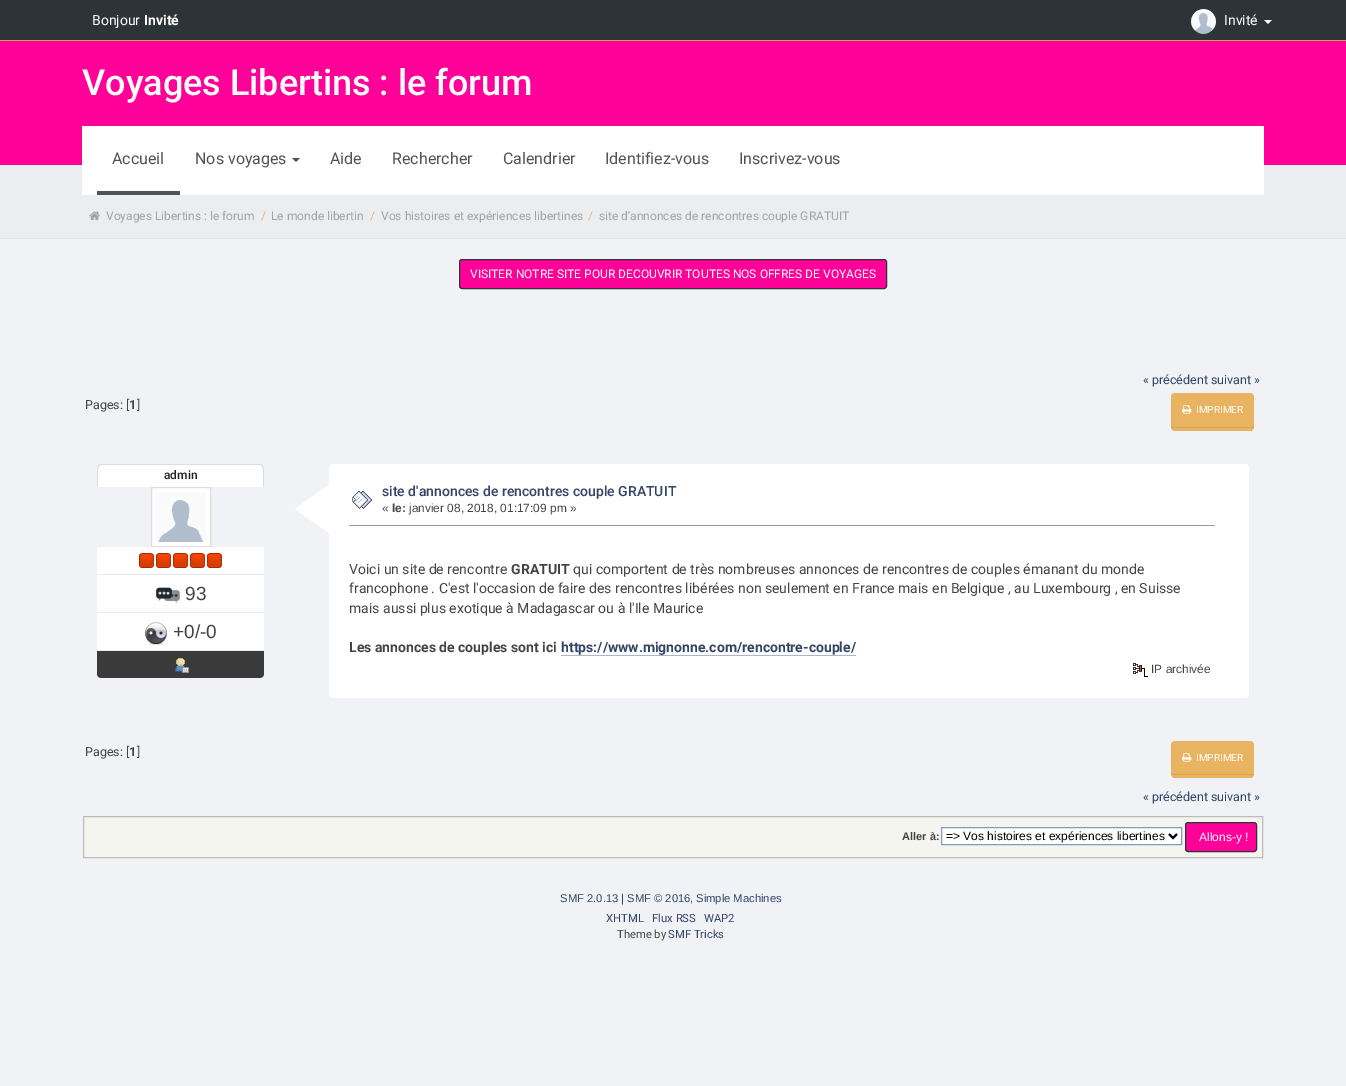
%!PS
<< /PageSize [1346 1086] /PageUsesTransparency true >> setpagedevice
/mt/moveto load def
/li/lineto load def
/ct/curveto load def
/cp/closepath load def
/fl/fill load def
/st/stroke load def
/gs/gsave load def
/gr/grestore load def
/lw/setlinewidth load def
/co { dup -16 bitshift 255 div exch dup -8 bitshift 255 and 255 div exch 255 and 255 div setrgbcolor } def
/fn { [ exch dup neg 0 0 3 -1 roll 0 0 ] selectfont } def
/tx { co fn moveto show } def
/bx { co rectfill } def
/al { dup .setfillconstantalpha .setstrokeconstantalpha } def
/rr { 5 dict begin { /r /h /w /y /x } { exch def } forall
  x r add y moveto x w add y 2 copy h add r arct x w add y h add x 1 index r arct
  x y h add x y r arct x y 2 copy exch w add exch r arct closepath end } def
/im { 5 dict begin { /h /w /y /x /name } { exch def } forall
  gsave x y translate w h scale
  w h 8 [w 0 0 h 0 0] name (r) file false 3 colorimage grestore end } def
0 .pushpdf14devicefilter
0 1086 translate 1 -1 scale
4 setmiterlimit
0 0 1346 1086 16#F0F2F6 bx
0 0 1346 40 16#2C3437 bx
0 40 1346 1 16#D19E4E bx
(media/1.raw) 1191 9 25 25 im
16#FFFFFF co
1264 20 mt 1272 20 li 1268 24 li cp fl
0 41 1346 124 16#FF0099 bx
0 165 1346 73 16#EBEDF0 bx
82 126 1182 69 16#FFFFFF bx
97 191 83 4 16#525252 bx
292 158 mt 300 158 li 296 162 li cp fl
0 238 1346 1 16#E4E6E9 bx
(media/2.raw) 89 211 11 9 im
16#FF0099 co
459.5 259.5 427 29 2.5 rr gs fl gr
16#2C3437 co
st
16#E9B462 co
1171 393 83 38 4 rr fl
0.09 al
16#000000 co
1171 426 mt 1171 427 li 1171 428 1173 428 1175 428 ct 1250 428 li 1252 428 1254 428 1254 427 ct 1254 426 li 1254 427 1252 427 1250 427 ct 1175 427 li 1173 427 1171 427 1171 426 ct cp fl
1 al
1173 430 79 1 16#E9B462 bx
(media/3.raw) 1182 405 10 9 im
16#FFFFFF co
102 464 mt 259 464 li 262 464 264 466 264 469 ct 264 487 li 97 487 li 97 469 li 97 466 99 464 102 464 ct cp fl
16#DDDDDD co
102 464 mt 259 464 li 262 464 264 466 264 469 ct 264 487 li 97 487 li 97 469 li 97 466 99 464 102 464 ct cp 102 465 mt 259 465 li 261 465 263 467 263 469 ct 263 487 li 98 487 li 98 469 li 98 467 100 465 102 465 ct cp eofill
16#FFFFFF co
151.5 487.5 mt 210.5 487.5 li 210.5 546.5 li 151.5 546.5 li cp gs fl gr
16#DDDDDD co
st
(media/4.raw) 156 492 50 50 im
97 547 167 27 16#FFFFFF bx
(media/5.raw) 139 553 15 15 im
(media/5.raw) 156 553 15 15 im
(media/5.raw) 173 553 15 15 im
(media/5.raw) 190 553 15 15 im
(media/5.raw) 207 553 15 15 im
97 575 167 37 16#FFFFFF bx
97 574 167 1 16#EBEBEB bx
97 612 167 1 16#EBEBEB bx
(media/6.raw) 156 587 24 17 im
97 613 167 37 16#FFFFFF bx
97 650 167 1 16#EBEBEB bx
(media/7.raw) 145 622 22 23 im
16#3A3A3A co
97 651 mt 264 651 li 264 674 li 264 676 262 678 260 678 ct 101 678 li 99 678 97 676 97 674 ct cp fl
(media/8.raw) 175 658 14 15 im
16#FFFFFF co
329 464 920 234 4 rr fl
330 484 mt 330 534 li 295 509 li cp fl
(media/9.raw) 352 491 20 18 im
349 525 866 1 16#9999AA bx
561 655 295 1 16#A8B6CF bx
(media/10.raw) 1133 663 15 14 im
16#E9B462 co
1171 741 83 37 4 rr fl
0.09 al
16#000000 co
1171 773 mt 1171 774 li 1171 775 1173 775 1175 775 ct 1250 775 li 1252 775 1254 775 1254 774 ct 1254 773 li 1254 774 1252 774 1250 774 ct 1175 774 li 1173 774 1171 774 1171 773 ct cp fl
1 al
1173 777 79 1 16#E9B462 bx
(media/3.raw) 1182 753 10 9 im
16#F5F5F0 co
83.5 816.5 mt 1262.5 816.5 li 1262.5 857.5 li 83.5 857.5 li cp gs fl gr
16#BBBBBB co
st
16#FFFFFF co
941.5 827.5 mt 1181.5 827.5 li 1181.5 844.5 li 941.5 844.5 li cp gs fl gr
16#7F9DB9 co
st
16#000000 co
2 lw
1169 834 mt 1173 838 li 1177 834 li st
16#FF0099 co
1185.5 822.5 71 29 2.5 rr gs fl gr
16#2C3437 co
1 lw
st
(Bonjour) 92 25 /Roboto-Regular 14 16#FFFFFF tx
(Invité) 144 25 /Roboto-Bold 14 16#FFFFFF tx
(Invité) 1224 25 /Roboto-Regular 14 16#FFFFFF tx
(Voyages Libertins : le forum) 82 95 /Roboto-Medium 36 16#FFFFFF tx
(Accueil) 112 164 /Roboto-Regular 16 16#525252 tx
(Nos voyages) 195 164 /Roboto-Regular 16 16#525252 tx
(Aide) 330 164 /Roboto-Regular 16 16#525252 tx
(Rechercher) 392 164 /Roboto-Regular 16 16#525252 tx
(Calendrier) 503 164 /Roboto-Regular 16 16#525252 tx
(Identifiez-vous) 605 164 /Roboto-Regular 16 16#525252 tx
(Inscrivez-vous) 739 164 /Roboto-Regular 16 16#525252 tx
(Voyages Libertins : le forum) 106 220 /Roboto-Regular 12 16#A2A2A2 tx
(/) 261 220 /Roboto-Regular 12 16#E9B462 tx
(Le monde libertin) 271 220 /Roboto-Regular 12 16#A2A2A2 tx
(/) 370 220 /Roboto-Regular 12 16#E9B462 tx
(Vos histoires et expériences libertines) 381 220 /Roboto-Regular 12 16#A2A2A2 tx
(/) 588 220 /Roboto-Regular 12 16#E9B462 tx
(site d'annonces de rencontres couple GRATUIT) 599 220 /Roboto-Regular 12 16#A2A2A2 tx
(VISITER NOTRE SITE POUR DECOUVRIR TOUTES NOS OFFRES DE VOYAGES) 470 278 /Roboto-Regular 12 16#FFFFFF tx
(« précédent suivant ») 1143 384 /Roboto-Regular 12.5 16#334466 tx
(Pages: [) 85 409 /Roboto-Regular 12.5 16#444444 tx
(1) 129 409 /Roboto-Bold 12.5 16#444444 tx
(]) 137 409 /Roboto-Regular 12.5 16#444444 tx
(IMPRIMER) 1196 413 /Roboto-Regular 10 16#FFFFFF tx
(admin) 164 479 /Roboto-Medium 12 16#222222 tx
(93) 185 600 /LiberationSans-Regular 19 16#444444 tx
(+0/-0) 173 638 /LiberationSans-Regular 19 16#444444 tx
(site d'annonces de rencontres couple GRATUIT) 382 496 /Roboto-Medium 14 16#334466 tx
(«) 382 512 /LiberationSans-Regular 11.9 16#444444 tx
(le:) 392 512 /LiberationSans-Bold 11.9 16#444444 tx
(janvier 08, 2018, 01:17:09 pm ») 409 512 /LiberationSans-Regular 11.9 16#444444 tx
(Voici un site de rencontre) 349 574 /Roboto-Regular 14 16#444444 tx
(GRATUIT) 511 574 /Roboto-Bold 14 16#444444 tx
(qui comportent de très nombreuses annonces de rencontres de couples émanant du monde) 573 574 /Roboto-Regular 14 16#444444 tx
(francophone . C'est l'occasion de faire des rencontres libérées non seulement en France mais en Belgique , au Luxembourg , en Suisse) 349 593 /Roboto-Regular 14 16#444444 tx
(mais aussi plus exotique à Madagascar ou à l'Ile Maurice) 349 613 /Roboto-Regular 14 16#444444 tx
(Les annonces de couples sont ici) 349 652 /Roboto-Bold 14 16#444444 tx
(https://www.mignonne.com/rencontre-couple/) 561 652 /Roboto-Bold 14 16#334466 tx
(IP archivée) 1151 673 /LiberationSans-Regular 11.9 16#444444 tx
(Pages: [) 85 756 /Roboto-Regular 12.5 16#444444 tx
(1) 129 756 /Roboto-Bold 12.5 16#444444 tx
(]) 137 756 /Roboto-Regular 12.5 16#444444 tx
(IMPRIMER) 1196 761 /Roboto-Regular 10 16#FFFFFF tx
(« précédent suivant ») 1143 801 /Roboto-Regular 12.5 16#334466 tx
(Aller à:) 902 840 /LiberationSans-Bold 11 16#444444 tx
(=> Vos histoires et expériences libertines) 946 840 /LiberationSans-Regular 12 16#000000 tx
(Allons-y !) 1199 841 /LiberationSans-Regular 12 16#FFFFFF tx
(SMF 2.0.13) 560 902 /LiberationSans-Regular 11.25 16#334466 tx
(|) 621 902 /LiberationSans-Regular 11.25 16#444444 tx
(SMF © 2016) 627 902 /LiberationSans-Regular 11.25 16#334466 tx
(,) 690 902 /LiberationSans-Regular 11.25 16#444444 tx
(Simple Machines) 696 902 /LiberationSans-Regular 11.25 16#334466 tx
(XHTML) 606 922 /Roboto-Regular 11.25 16#334466 tx
(Flux RSS) 652 922 /Roboto-Regular 11.25 16#334466 tx
(WAP2) 704 922 /Roboto-Regular 11.25 16#334466 tx
(Theme by) 617 938 /Roboto-Regular 11.25 16#444444 tx
(SMF Tricks) 668 938 /Roboto-Regular 11.25 16#334466 tx
.poppdf14devicefilter showpage
